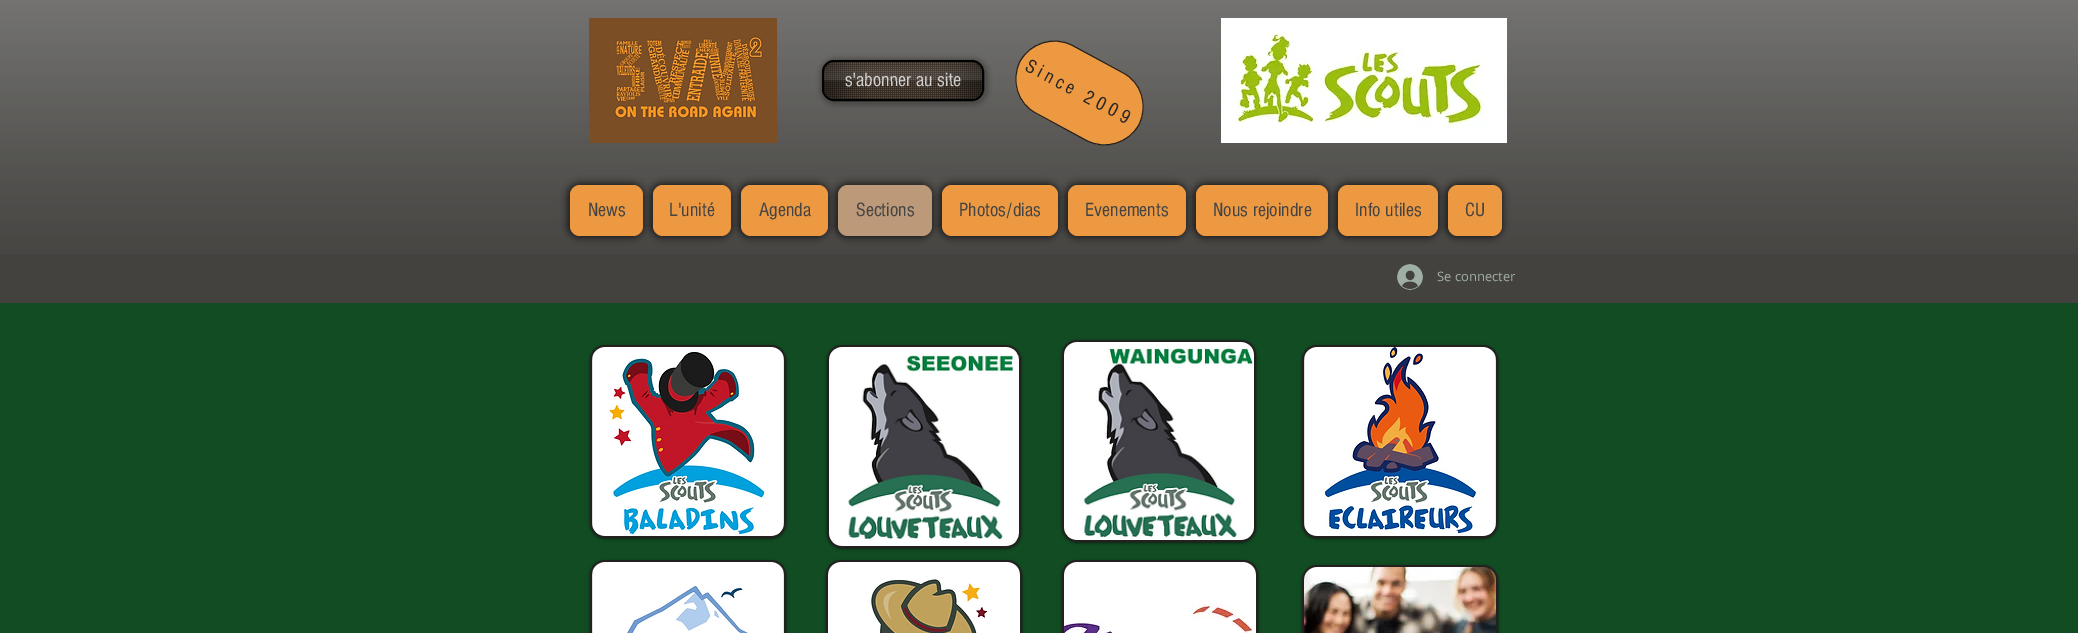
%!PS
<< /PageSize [2078 633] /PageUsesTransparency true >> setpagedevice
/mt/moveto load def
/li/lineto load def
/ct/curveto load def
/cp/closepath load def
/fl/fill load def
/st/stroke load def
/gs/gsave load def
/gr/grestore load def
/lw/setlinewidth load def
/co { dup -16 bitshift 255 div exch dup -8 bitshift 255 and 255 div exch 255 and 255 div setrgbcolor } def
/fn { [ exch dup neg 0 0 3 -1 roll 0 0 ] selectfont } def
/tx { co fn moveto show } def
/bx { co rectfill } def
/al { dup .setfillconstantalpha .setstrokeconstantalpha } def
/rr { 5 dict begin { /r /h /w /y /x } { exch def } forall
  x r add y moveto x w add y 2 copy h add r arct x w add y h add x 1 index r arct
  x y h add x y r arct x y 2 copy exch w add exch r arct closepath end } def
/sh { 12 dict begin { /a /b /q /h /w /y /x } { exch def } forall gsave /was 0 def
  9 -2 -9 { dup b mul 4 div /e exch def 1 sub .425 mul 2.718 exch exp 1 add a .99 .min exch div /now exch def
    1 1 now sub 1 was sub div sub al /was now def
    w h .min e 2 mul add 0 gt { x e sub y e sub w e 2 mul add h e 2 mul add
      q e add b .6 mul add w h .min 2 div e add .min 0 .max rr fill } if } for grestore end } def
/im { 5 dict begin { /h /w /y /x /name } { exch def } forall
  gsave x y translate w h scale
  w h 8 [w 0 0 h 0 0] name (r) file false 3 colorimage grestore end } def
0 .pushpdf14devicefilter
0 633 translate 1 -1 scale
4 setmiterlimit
0 0 2078 633 16#114C22 bx
0 0 2078 303 16#43423F bx
(media/1.raw) 0 0 2078 254 im
(media/2.raw) 589 18 188 125 im
16#FFFFFF co
823 61 162 41 12 1.5 .3 sh
16#000000 co
822 60 164 43 13 3 .6 sh
16#5E4D3D co
822 60 162 41 12 rr fl
(media/3.raw) 822 60 162 41 im
16#000000 co
2 lw
823 61 160 39 11 rr st
(media/4.raw) 824 62 42 37 im
(media/6.raw) 939 62 43 37 im
(media/7.raw) 1015 40 129 106 im
16#222120 co
1 lw
1072.5 45.5 mt 1122.5 72.5 li 1141.5 82 1148.5 105.5 1139 124.5 ct 1129 143 1105.5 150.5 1086.5 140.5 ct 1036.5 113.5 li 1017.5 104 1010.5 80.5 1020 61.5 ct 1030 43 1053.5 35.5 1072.5 45.5 ct cp st
(media/8.raw) 1221 18 286 125 im
16#000000 co
567 183 77 55 12 3.5 .6 sh
16#ED9942 co
570 185 73 51 10 rr fl
16#000000 co
650 183 82 55 12 3.5 .6 sh
16#ED9942 co
653 185 78 51 10 rr fl
16#000000 co
738 183 91 55 12 3.5 .6 sh
16#ED9942 co
741 185 87 51 10 rr fl
16#000000 co
835 183 98 55 12 3.5 .6 sh
16#BC9979 co
838 185 94 51 10 rr fl
16#000000 co
939 183 120 55 12 3.5 .6 sh
16#ED9942 co
942 185 116 51 10 rr fl
16#000000 co
1065 183 122 55 12 3.5 .6 sh
16#ED9942 co
1068 185 118 51 10 rr fl
16#000000 co
1193 183 136 55 12 3.5 .6 sh
16#ED9942 co
1196 185 132 51 10 rr fl
16#000000 co
1335 183 104 55 12 3.5 .6 sh
16#ED9942 co
1338 185 100 51 10 rr fl
16#000000 co
1445 183 58 55 12 3.5 .6 sh
16#ED9942 co
1448 185 54 51 10 rr fl
(media/9.raw) 1397 264 26 26 im
16#000000 co
590 346 196 193 15 1.5 .5 sh
16#222120 co
2 lw
591 346 194 191 14 rr st
(media/10.raw) 592 347 192 189 im
16#000000 co
827 346 194 203 15 1.5 .5 sh
16#222120 co
828 346 192 201 14 rr gs fl gr
st
(media/11.raw) 829 347 190 199 im
16#000000 co
1062 341 194 202 15 1.5 .5 sh
16#222120 co
1063 341 192 200 14 rr st
(media/12.raw) 1064 342 190 198 im
16#000000 co
1302 346 196 193 15 1.5 .5 sh
16#222120 co
1303 346 194 191 14 rr st
(media/13.raw) 1304 347 192 189 im
16#000000 co
590 561 196 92 15 1.5 .5 sh
16#222120 co
591 561 194 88 14 rr st
(media/14.raw) 592 562 192 71 im
16#000000 co
826 561 196 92 15 1.5 .5 sh
16#222120 co
827 561 194 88 14 rr st
(media/15.raw) 828 562 192 71 im
16#000000 co
1062 561 196 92 15 1.5 .5 sh
16#222120 co
1063 561 194 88 14 rr st
(media/16.raw) 1064 562 192 71 im
16#000000 co
1302 566 196 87 15 1.5 .5 sh
16#222120 co
1303 566 194 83 14 rr st
(media/17.raw) 1304 567 192 66 im
(s'abonner au site) 845 86 /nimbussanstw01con-Regular 20 16#D0CFCD tx
(media/5.raw) 824 62 158 19 im
16#282626 co
gs 1024 70 translate 27.8 rotate 0 0 mt 4 0 (Since 2009) ashow gr
(News) 588 216 /nimbussanstw01con-Regular 20 16#444444 tx
(L'unité) 669 216 /nimbussanstw01con-Regular 20 16#444444 tx
(Agenda) 759 216 /nimbussanstw01con-Regular 20 16#444444 tx
(Sections) 856 216 /nimbussanstw01con-Regular 20 16#444444 tx
(Photos/dias) 959 216 /nimbussanstw01con-Regular 20 16#444444 tx
(Evenements) 1085 216 /nimbussanstw01con-Regular 20 16#444444 tx
(Nous rejoindre) 1213 216 /nimbussanstw01con-Regular 20 16#444444 tx
(Info utiles) 1355 216 /nimbussanstw01con-Regular 20 16#444444 tx
(CU) 1465 216 /nimbussanstw01con-Regular 20 16#444444 tx
(Se connecter) 1437 281 /OpenSans-Regular 13 16#A0AFA6 tx
.poppdf14devicefilter showpage
